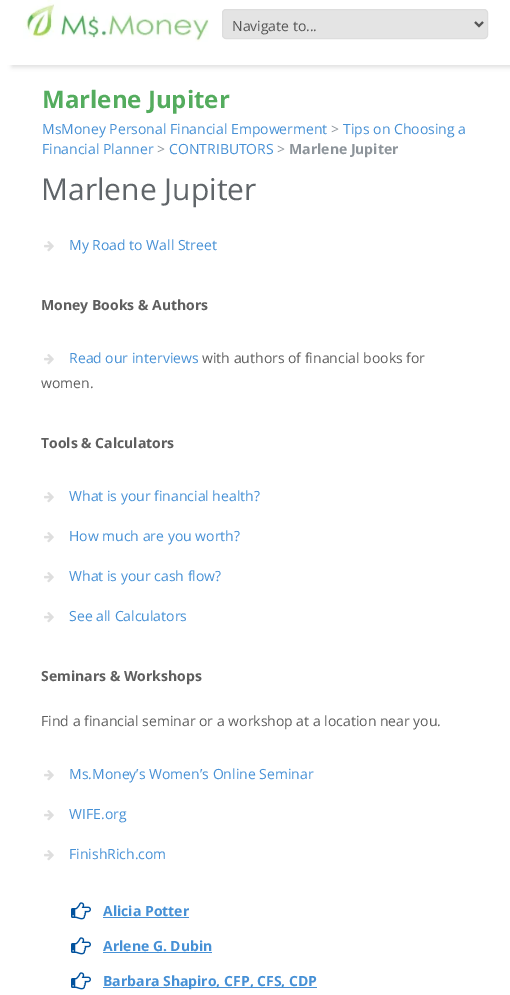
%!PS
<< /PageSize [510 995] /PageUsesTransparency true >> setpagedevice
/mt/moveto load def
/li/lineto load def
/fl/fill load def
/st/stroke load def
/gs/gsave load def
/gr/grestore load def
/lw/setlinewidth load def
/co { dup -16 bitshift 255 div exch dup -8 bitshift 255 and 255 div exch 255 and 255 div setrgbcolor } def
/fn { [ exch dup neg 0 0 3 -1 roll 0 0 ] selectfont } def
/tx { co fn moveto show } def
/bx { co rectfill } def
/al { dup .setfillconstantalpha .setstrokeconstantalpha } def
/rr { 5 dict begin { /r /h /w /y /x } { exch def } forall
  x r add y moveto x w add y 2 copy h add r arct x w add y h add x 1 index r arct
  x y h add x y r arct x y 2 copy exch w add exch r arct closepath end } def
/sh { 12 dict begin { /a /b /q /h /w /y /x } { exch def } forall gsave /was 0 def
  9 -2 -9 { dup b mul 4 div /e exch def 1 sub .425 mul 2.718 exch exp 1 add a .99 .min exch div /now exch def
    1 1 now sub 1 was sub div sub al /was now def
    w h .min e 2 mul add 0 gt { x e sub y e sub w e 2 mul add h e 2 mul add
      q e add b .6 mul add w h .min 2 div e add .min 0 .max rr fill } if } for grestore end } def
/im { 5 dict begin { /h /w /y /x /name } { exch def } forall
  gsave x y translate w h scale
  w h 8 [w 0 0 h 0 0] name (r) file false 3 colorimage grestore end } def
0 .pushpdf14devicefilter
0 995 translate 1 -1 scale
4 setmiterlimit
0 0 510 995 16#FFFFFF bx
gs
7 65 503 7 rectclip
16#DDDDDD co
12 0 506 67 0 2.5 1 sh
gr
(media/1.raw) 23 0 186 42 im
16#E4E4E4 co
222.5 9.5 265 29 3.5 rr gs fl gr
16#DDDDDD co
st
16#555555 co
2 lw
475 22 mt 479 26 li 483 22 li st
(media/2.raw) 44 241 10 11 im
(media/2.raw) 44 354 10 11 im
(media/2.raw) 44 492 10 11 im
(media/2.raw) 44 532 10 11 im
(media/2.raw) 44 572 10 11 im
(media/2.raw) 44 612 10 11 im
(media/2.raw) 44 770 10 11 im
(media/2.raw) 44 810 10 11 im
(media/2.raw) 44 850 10 11 im
(media/3.raw) 71 902 20 18 im
103 917 86 1 16#4690D5 bx
(media/3.raw) 71 937 20 18 im
103 952 109 1 16#4690D5 bx
(media/3.raw) 71 972 20 18 im
103 987 214 1 16#4690D5 bx
(Navigate to...) 232 31 /OpenSans-Regular 14 16#555555 tx
(Marlene Jupiter) 42 108 /OpenSans-Bold 24 16#54AC5E tx
(MsMoney Personal Financial Empowerment) 42 134 /OpenSans-Regular 14 16#4690D5 tx
(>) 331 134 /OpenSans-Regular 14 16#8D949A tx
(Tips on Choosing a) 343 134 /OpenSans-Regular 14 16#4690D5 tx
(Financial Planner) 42 154 /OpenSans-Regular 14 16#4690D5 tx
(>) 157 154 /OpenSans-Regular 14 16#8D949A tx
(CONTRIBUTORS) 169 154 /OpenSans-Regular 14 16#4690D5 tx
(>) 277 154 /OpenSans-Regular 14 16#8D949A tx
(Marlene Jupiter) 289 154 /OpenSans-Bold 14 16#8D949A tx
(Marlene Jupiter) 41 200 /OpenSans-Regular 30 16#606569 tx
(My Road to Wall Street) 69 250 /OpenSans-Regular 14 16#4690D5 tx
(Money Books & Authors) 41 310 /OpenSans-Bold 14 16#5E5E5E tx
(Read our interviews) 69 363 /OpenSans-Regular 14 16#4690D5 tx
(with authors of financial books for) 202 363 /OpenSans-Regular 14 16#5E5E5E tx
(women.) 41 388 /OpenSans-Regular 14 16#5E5E5E tx
(Tools & Calculators) 41 448 /OpenSans-Bold 14 16#5E5E5E tx
(What is your financial health?) 69 501 /OpenSans-Regular 14 16#4690D5 tx
(How much are you worth?) 69 541 /OpenSans-Regular 14 16#4690D5 tx
(What is your cash flow?) 69 581 /OpenSans-Regular 14 16#4690D5 tx
(See all Calculators) 69 621 /OpenSans-Regular 14 16#4690D5 tx
(Seminars & Workshops) 41 681 /OpenSans-Bold 14 16#5E5E5E tx
(Find a financial seminar or a workshop at a location near you.) 41 726 /OpenSans-Regular 14 16#5E5E5E tx
(Ms.Money’s Women’s Online Seminar) 69 779 /OpenSans-Regular 14 16#4690D5 tx
(WIFE.org) 69 819 /OpenSans-Regular 14 16#4690D5 tx
(FinishRich.com) 69 859 /OpenSans-Regular 14 16#4690D5 tx
(Alicia Potter) 103 916 /OpenSans-Bold 14 16#4690D5 tx
(Arlene G. Dubin) 103 951 /OpenSans-Bold 14 16#4690D5 tx
(Barbara Shapiro, CFP, CFS, CDP) 103 986 /OpenSans-Bold 14 16#4690D5 tx
.poppdf14devicefilter showpage
